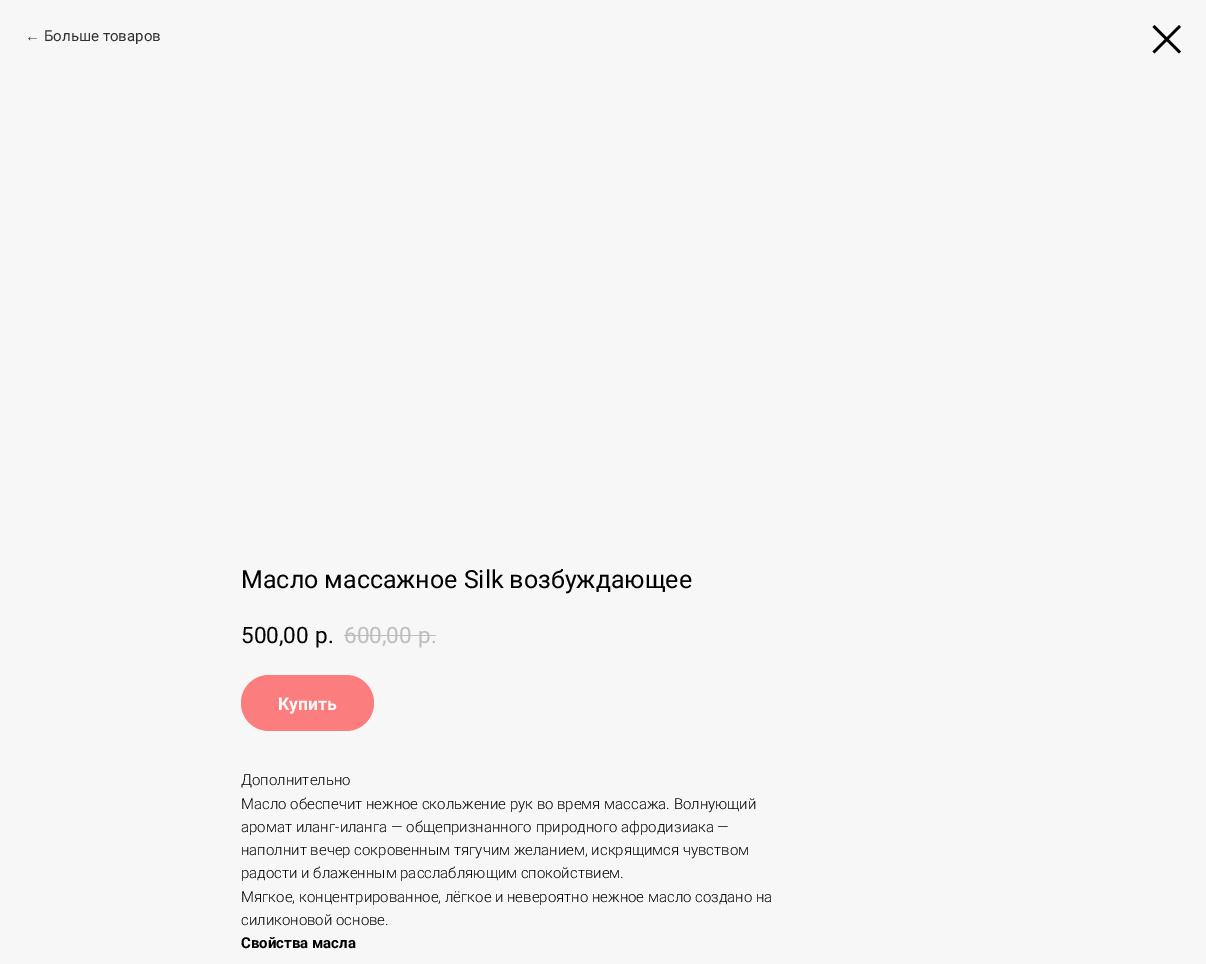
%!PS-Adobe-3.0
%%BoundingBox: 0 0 1206 964
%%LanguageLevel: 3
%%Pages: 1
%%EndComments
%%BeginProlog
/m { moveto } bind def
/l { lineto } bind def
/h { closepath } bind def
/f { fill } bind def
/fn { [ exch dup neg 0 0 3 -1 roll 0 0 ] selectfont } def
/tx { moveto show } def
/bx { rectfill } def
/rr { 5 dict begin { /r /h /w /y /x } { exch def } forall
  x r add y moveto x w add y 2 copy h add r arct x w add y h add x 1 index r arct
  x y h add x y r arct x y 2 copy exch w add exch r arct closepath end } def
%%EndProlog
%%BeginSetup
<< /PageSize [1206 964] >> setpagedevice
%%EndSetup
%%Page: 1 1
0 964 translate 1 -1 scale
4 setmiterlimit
0.969 setgray
0 0 1206 964 bx
/LiberationSans-Regular 15 fn
0.192 setgray
(←) 25 41 tx
/Roboto-Regular 15 fn
(Больше товаров) 44 41 tx
0 setgray
1152.5 27 m 1154.5 25 l 1181 51.5 l 1179 53.5 l h eofill
1179 25 m 1181 27 l 1154.5 53.5 l 1152.5 51.5 l h eofill
/Roboto-Regular 25 fn
(Масло массажное Silk возбуждающее) 241 588 tx
/Roboto-Regular 22.5 fn
(500,00) 241 643 tx
(р.) 315 643 tx
0.741 setgray
(600,00) 344 643 tx
(р.) 418 643 tx
344 635 92 1 bx
0.984 0.49 0.49 setrgbcolor
241 675 133 56 28 rr f
/Roboto-Bold 17.5 fn
0.98 setgray
(Купить) 278 710 tx
/Roboto-Light 15 fn
0 setgray
(Дополнительно) 241 785 tx
(Масло обеспечит нежное скольжение рук во время массажа. Волнующий) 241 809 tx
(аромат иланг-иланга — общепризнанного природного афродизиака —) 241 832 tx
(наполнит вечер сокровенным тягучим желанием, искрящимся чувством) 241 855 tx
(радости и блаженным расслабляющим спокойствием.) 241 878 tx
(Мягкое, концентрированное, лёгкое и невероятно нежное масло создано на) 241 902 tx
(силиконовой основе.) 241 925 tx
/Roboto-Bold 15 fn
(Свойства масла) 241 948 tx
showpage
%%EOF
